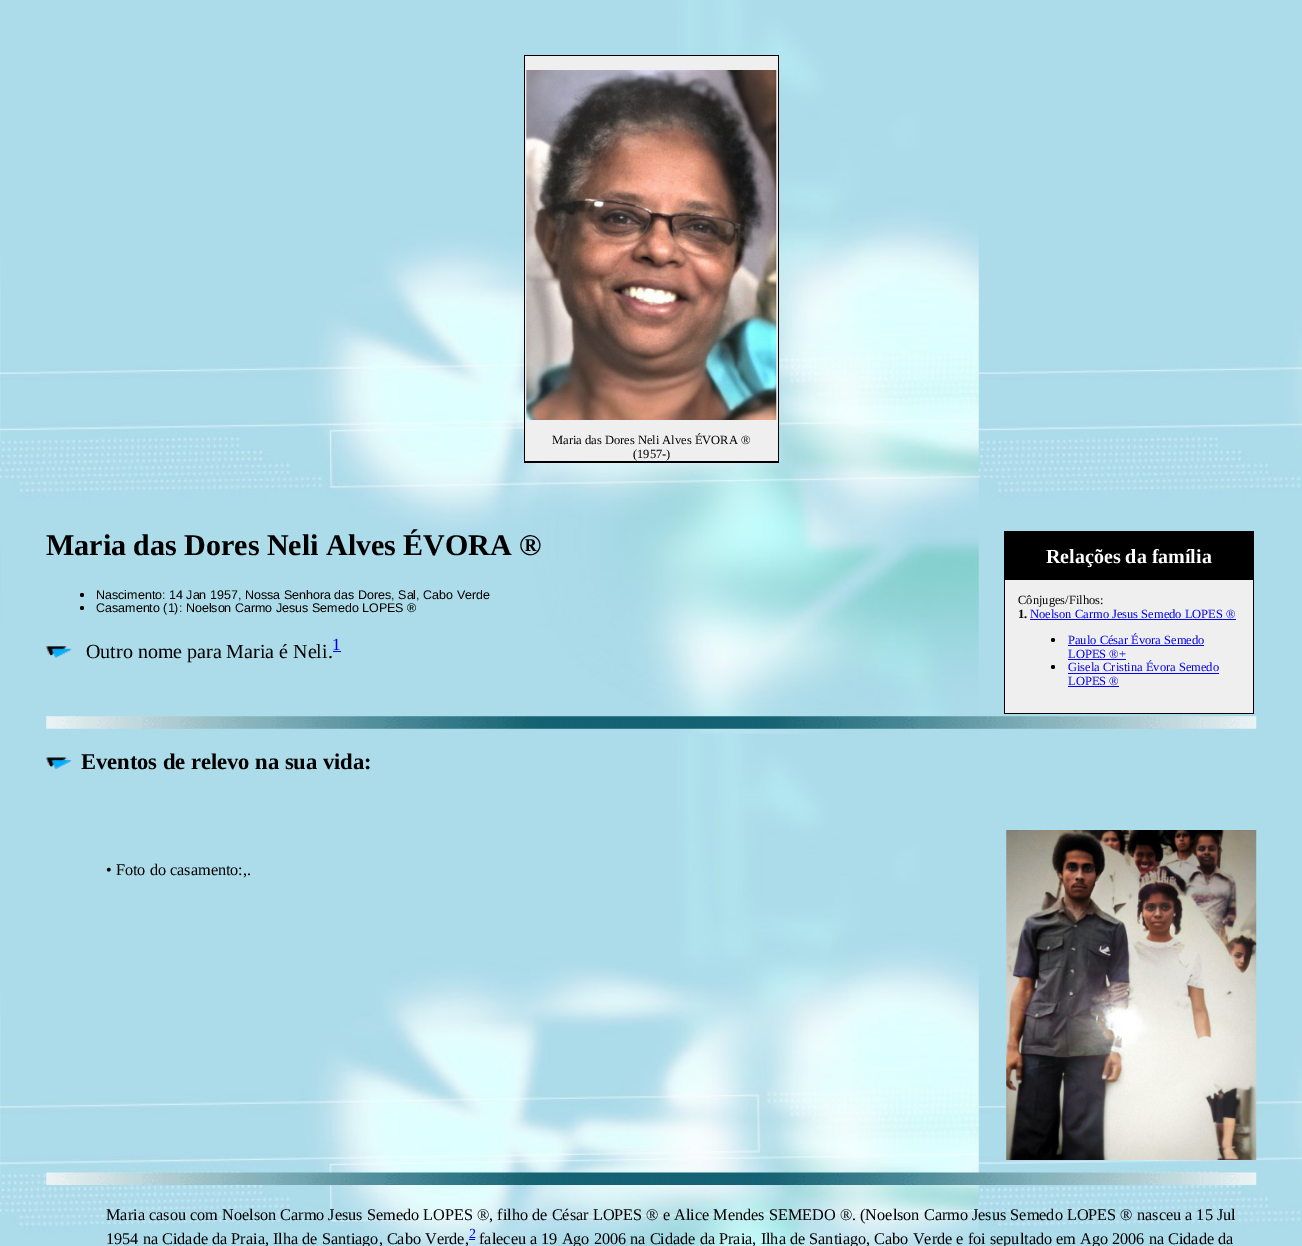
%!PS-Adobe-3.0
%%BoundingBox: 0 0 1302 1246
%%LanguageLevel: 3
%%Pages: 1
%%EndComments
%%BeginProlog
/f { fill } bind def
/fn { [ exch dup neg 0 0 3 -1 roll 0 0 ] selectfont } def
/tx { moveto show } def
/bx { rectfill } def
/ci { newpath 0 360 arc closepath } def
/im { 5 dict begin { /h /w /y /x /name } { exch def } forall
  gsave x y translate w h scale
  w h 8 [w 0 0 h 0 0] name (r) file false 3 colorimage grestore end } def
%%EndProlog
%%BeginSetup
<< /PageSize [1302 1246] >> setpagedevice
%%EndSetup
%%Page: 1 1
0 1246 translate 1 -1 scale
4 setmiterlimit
1 setgray
0 0 1302 1246 bx
(image0.raw) 0 0 1302 1246 im
0 setgray
524 55 255 408 bx
0.937 setgray
525 56 253 405 bx
(image1.raw) 526 70 251 350 im
/LiberationSerif-Regular 12.5 fn
0 setgray
(Maria das Dores Neli Alves ÉVORA ®) 552 444 tx
(\(1957-\)) 633 458 tx
/LiberationSerif-Bold 30 fn
(Maria das Dores Neli Alves ÉVORA ®) 46 555 tx
82 595 2 ci f
/LiberationSans-Regular 12.5 fn
(Nascimento: 14 Jan 1957, Nossa Senhora das Dores, Sal, Cabo Verde) 96 599 tx
82 608 2 ci f
(Casamento \(1\): Noelson Carmo Jesus Semedo LOPES ®) 96 612 tx
1004 531 250 183 bx
/LiberationSerif-Bold 20 fn
1 setgray
(Relações da família) 1046 563 tx
0.937 setgray
1005 580 248 133 bx
/LiberationSerif-Regular 12.5 fn
0 setgray
(Cônjuges/Filhos:) 1018 604 tx
/LiberationSerif-Bold 12.5 fn
(1.) 1018 618 tx
/LiberationSerif-Regular 12.5 fn
0 0 0.933 setrgbcolor
(Noelson Carmo Jesus Semedo LOPES ®) 1030 618 tx
1030 619 206 1 bx
0 setgray
1053 640 2 ci f
0 0 0.933 setrgbcolor
(Paulo César Évora Semedo) 1068 644 tx
1068 645 136 1 bx
(LOPES ®+) 1068 658 tx
1068 659 58 1 bx
0 setgray
1053 667 2 ci f
0 0 0.933 setrgbcolor
(Gisela Cristina Évora Semedo) 1068 671 tx
1068 673 151 1 bx
(LOPES ®) 1068 685 tx
1068 686 51 1 bx
(image2.raw) 46 646 26 12 im
/LiberationSerif-Regular 20 fn
0 setgray
(Outro nome para Maria é Neli.) 86 658 tx
/LiberationSerif-Regular 17 fn
0 0 0.933 setrgbcolor
(1) 332 650 tx
333 651 8 1 bx
(image3.raw) 46 716 1211 13 im
(image4.raw) 46 757 26 12 im
/LiberationSerif-Bold 22.5 fn
0 setgray
(Eventos de relevo na sua vida:) 81 769 tx
/LiberationSerif-Regular 16.25 fn
(• Foto do casamento:,.) 106 875 tx
(image5.raw) 1006 830 251 330 im
(image6.raw) 46 1172 1211 13 im
(Maria casou com Noelson Carmo Jesus Semedo LOPES ®, filho de César LOPES ® e Alice Mendes SEMEDO ®. \(Noelson Carmo Jesus Semedo LOPES ® nasceu a 15 Jul) 106 1220 tx
(1954 na Cidade da Praia, Ilha de Santiago, Cabo Verde,) 106 1244 tx
0 0 0.933 setrgbcolor
469 1239 6 1 bx
/LiberationSerif-Regular 14 fn
(2) 469 1238 tx
/LiberationSerif-Regular 16.25 fn
0 setgray
(faleceu a 19 Ago 2006 na Cidade da Praia, Ilha de Santiago, Cabo Verde e foi sepultado em Ago 2006 na Cidade da) 479 1244 tx
showpage
%%EOF
